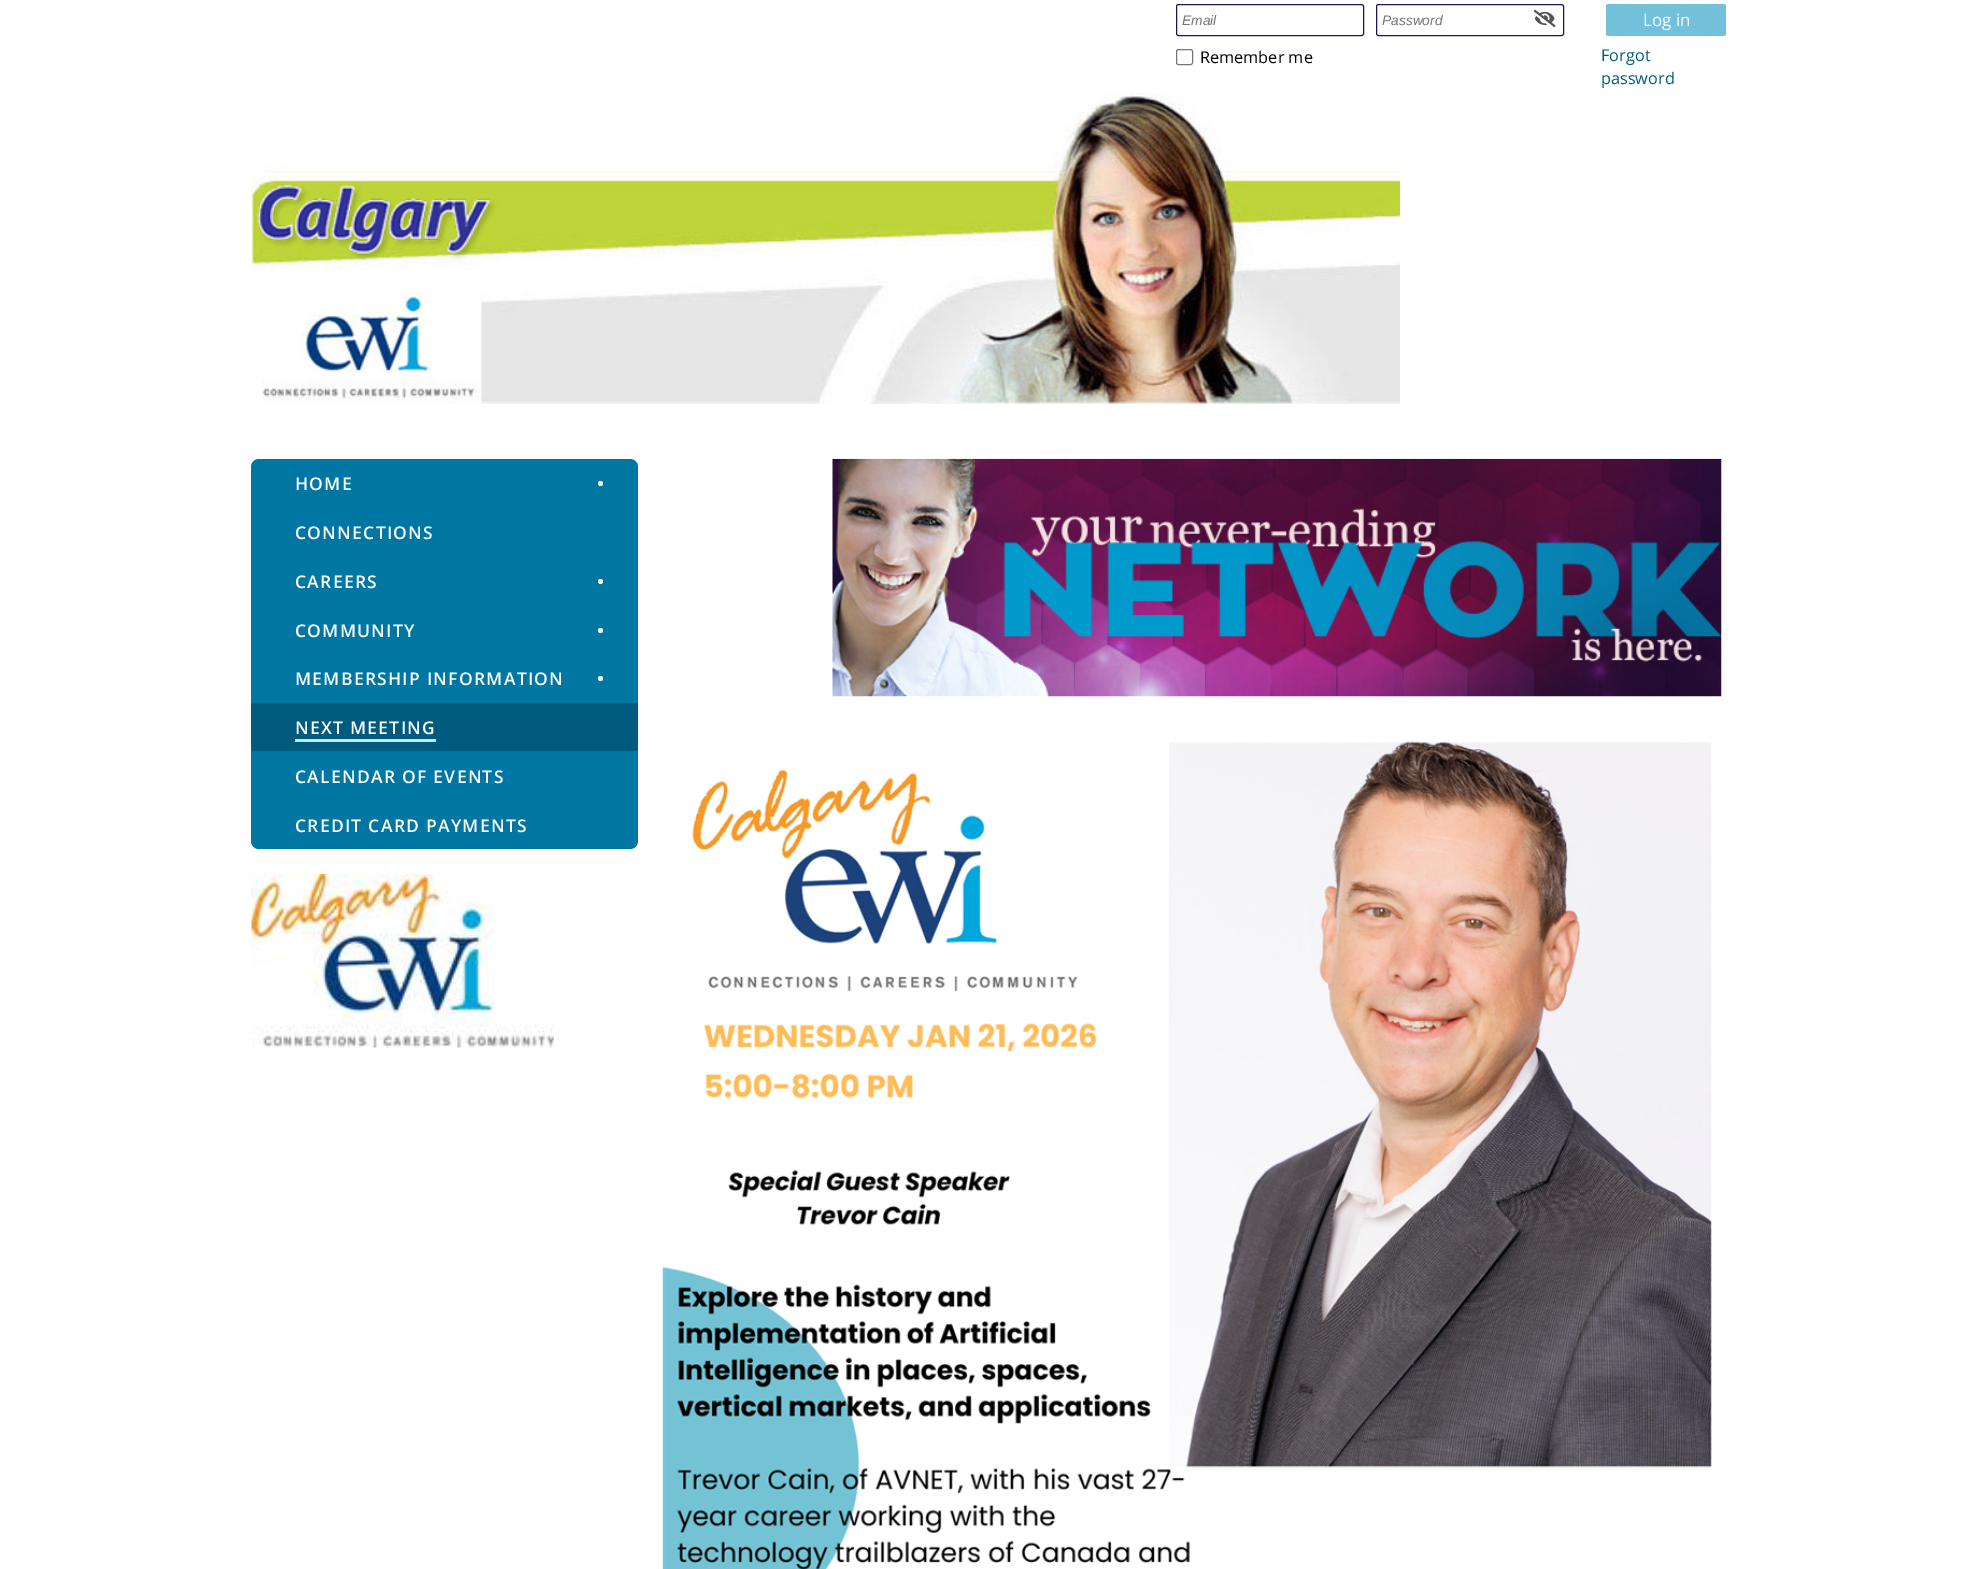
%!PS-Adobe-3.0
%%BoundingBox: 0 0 1977 1569
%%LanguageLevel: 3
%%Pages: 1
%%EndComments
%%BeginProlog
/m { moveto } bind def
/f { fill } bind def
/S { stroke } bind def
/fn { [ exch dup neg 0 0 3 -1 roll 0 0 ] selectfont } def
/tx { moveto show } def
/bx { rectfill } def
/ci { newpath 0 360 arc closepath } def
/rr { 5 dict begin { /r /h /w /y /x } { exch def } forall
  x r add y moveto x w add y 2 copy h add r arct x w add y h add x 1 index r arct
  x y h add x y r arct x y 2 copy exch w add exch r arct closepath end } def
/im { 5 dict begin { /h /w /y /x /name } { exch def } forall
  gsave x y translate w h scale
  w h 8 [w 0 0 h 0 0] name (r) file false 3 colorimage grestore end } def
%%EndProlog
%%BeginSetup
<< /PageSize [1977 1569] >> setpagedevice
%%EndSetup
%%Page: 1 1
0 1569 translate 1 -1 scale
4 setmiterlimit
1 setgray
0 0 1977 1569 bx
0.106 0.078 0.392 setrgbcolor
1176.5 4.5 187 31 2 rr S
/LiberationSans-Italic 13.75 fn
0.459 setgray
(Email) 1182 25 tx
0.106 0.078 0.392 setrgbcolor
1376.5 4.5 187 31 2 rr S
0.459 setgray
(Password) 1382 25 tx
(image0.raw) 1533 9 23 19 im
0.451 0.753 0.855 setrgbcolor
1606 4 120 32 2.5 rr f
/OpenSans-Regular 17 fn
1 setgray
(Log in) 1643 26 tx
0.463 setgray
1176.5 49.5 16 15 2 rr S
/OpenSans-Regular 16.25 fn
0 setgray
(Remember me) 1200 63 tx
0 0.357 0.498 setrgbcolor
(Forgot) 1601 61 tx
(password) 1601 84 tx
(image1.raw) 251 93 1149 311 im
0 0.463 0.639 setrgbcolor
251 459 387 390 8 rr f
/OpenSans-SemiBold 17.5 fn
1 setgray
295 490 m 1.25 0 (HOME) ashow
600.5 483.5 2.5 ci f
295 539 m 1.25 0 (CONNECTIONS) ashow
295 588 m 1.25 0 (CAREERS) ashow
600.5 581.5 2.5 ci f
295 637 m 1.25 0 (COMMUNITY) ashow
600.5 630.5 2.5 ci f
295 685 m 1.25 0 (MEMBERSHIP INFORMATION) ashow
600.5 678.5 2.5 ci f
0 0.357 0.498 setrgbcolor
251 703 387 48 bx
1 setgray
295 734 m 1.25 0 (NEXT MEETING) ashow
0.729 0.933 1 setrgbcolor
295 739 141 3 bx
1 setgray
295 783 m 1.25 0 (CALENDAR OF EVENTS) ashow
295 832 m 1.25 0 (CREDIT CARD PAYMENTS) ashow
(image2.raw) 251 873 303 175 im
(image3.raw) 832 458 890 239 im
(image4.raw) 662 741 1050 828 im
showpage
%%EOF
